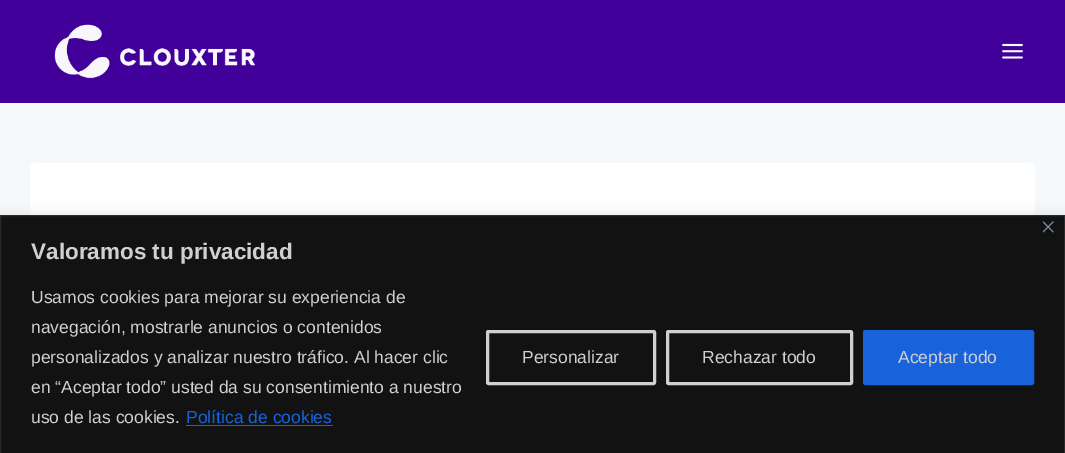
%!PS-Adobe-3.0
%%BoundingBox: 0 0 1065 453
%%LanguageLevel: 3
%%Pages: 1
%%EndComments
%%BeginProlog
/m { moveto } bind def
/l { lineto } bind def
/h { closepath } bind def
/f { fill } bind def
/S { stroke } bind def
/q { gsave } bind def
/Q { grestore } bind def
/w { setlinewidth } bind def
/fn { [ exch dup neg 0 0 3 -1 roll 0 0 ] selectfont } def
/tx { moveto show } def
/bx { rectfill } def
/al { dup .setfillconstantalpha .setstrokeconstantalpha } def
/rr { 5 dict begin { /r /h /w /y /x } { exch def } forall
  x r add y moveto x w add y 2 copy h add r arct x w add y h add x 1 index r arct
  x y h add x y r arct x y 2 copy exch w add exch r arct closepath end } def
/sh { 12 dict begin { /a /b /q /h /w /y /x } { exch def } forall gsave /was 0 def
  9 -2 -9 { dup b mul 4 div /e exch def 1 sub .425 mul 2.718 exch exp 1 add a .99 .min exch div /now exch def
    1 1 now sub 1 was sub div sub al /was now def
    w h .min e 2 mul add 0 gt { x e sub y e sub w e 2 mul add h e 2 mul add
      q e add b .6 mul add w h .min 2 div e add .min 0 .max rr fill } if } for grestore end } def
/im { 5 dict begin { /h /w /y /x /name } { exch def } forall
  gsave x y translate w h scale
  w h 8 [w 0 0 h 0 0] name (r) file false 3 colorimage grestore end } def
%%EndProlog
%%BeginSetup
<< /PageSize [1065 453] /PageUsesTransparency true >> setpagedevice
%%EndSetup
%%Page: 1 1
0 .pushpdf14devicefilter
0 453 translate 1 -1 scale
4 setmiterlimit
0.965 0.976 0.988 setrgbcolor
0 0 1065 453 bx
0.255 0 0.6 setrgbcolor
0 0 1065 103 bx
(image0.raw) 54 24 202 55 im
(image1.raw) 1002 43 21 16 im
1 setgray
30 163 1005 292 5 rr f
0.675 0.671 0.671 setrgbcolor
0 214 1065 239 0 6 0.3 sh
0.071 setgray
0.5 215.5 m 1064.5 215.5 l 1064.5 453.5 l 0.5 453.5 l h q f Q
0.165 setgray
S
(image2.raw) 1043 221 11 12 im
/LiberationSans-Bold 22.5 fn
0.816 setgray
(Valoramos tu privacidad) 31 259 tx
/LiberationSans-Regular 17.5 fn
(Usamos cookies para mejorar su experiencia de) 31 303 tx
(navegación, mostrarle anuncios o contenidos) 31 333 tx
(personalizados y analizar nuestro tráfico. Al hacer clic) 31 363 tx
(en “Aceptar todo” usted da su consentimiento a nuestro) 31 393 tx
(uso de las cookies.) 31 423 tx
0.094 0.388 0.863 setrgbcolor
(Política de cookies) 186 423 tx
186 425 147 1 bx
0.816 setgray
3 w
487.5 331.5 167 52 1 rr S
(Personalizar) 522 363 tx
667.5 331.5 184 52 1 rr S
(Rechazar todo) 702 363 tx
0.094 0.388 0.863 setrgbcolor
864.5 331.5 168 52 1 rr q f Q
S
0.816 setgray
(Aceptar todo) 898 363 tx
.poppdf14devicefilter showpage
%%EOF
